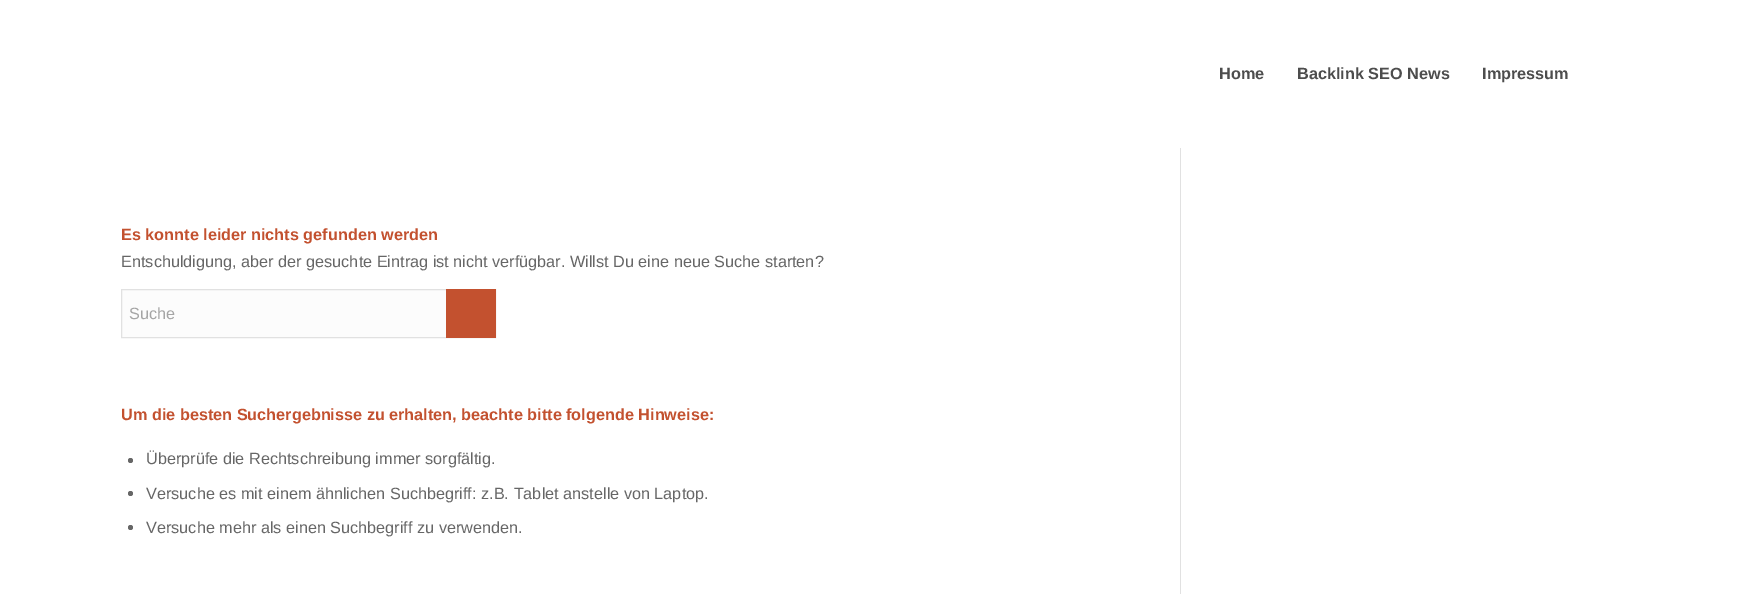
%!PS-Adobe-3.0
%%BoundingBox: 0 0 1755 594
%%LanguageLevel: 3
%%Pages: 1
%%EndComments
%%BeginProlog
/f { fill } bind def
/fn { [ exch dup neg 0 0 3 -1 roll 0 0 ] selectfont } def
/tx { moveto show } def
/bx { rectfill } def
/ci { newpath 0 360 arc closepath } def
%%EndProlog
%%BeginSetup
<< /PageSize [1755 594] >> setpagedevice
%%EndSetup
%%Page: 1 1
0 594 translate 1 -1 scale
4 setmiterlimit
1 setgray
0 0 1755 594 bx
/LiberationSans-Bold 16.25 fn
0.302 setgray
(Home) 1219 79 tx
(Backlink SEO News) 1297 79 tx
(Impressum) 1482 79 tx
0.882 setgray
1180 145 1 449 bx
1 setgray
1180 145 1 3 bx
0.765 0.318 0.184 setrgbcolor
(Es konnte leider nichts gefunden werden) 121 240 tx
/LiberationSans-Regular 16.25 fn
0.4 setgray
(Entschuldigung, aber der gesuchte Eintrag ist nicht verfügbar. Willst Du eine neue Suche starten?) 121 267 tx
0.988 setgray
122 290 324 47 bx
0.882 setgray
121.5 289.5 374 48 rectstroke
0.647 setgray
(Suche) 129 319 tx
0.765 0.318 0.184 setrgbcolor
446 289 50 49 bx
/LiberationSans-Bold 16.25 fn
(Um die besten Suchergebnisse zu erhalten, beachte bitte folgende Hinweise:) 121 420 tx
0.4 setgray
130.5 460.5 2.5 ci f
/LiberationSans-Regular 16.25 fn
(Überprüfe die Rechtschreibung immer sorgfältig.) 146 464 tx
130.5 493.5 2.5 ci f
(Versuche es mit einem ähnlichen Suchbegriff: z.B. Tablet anstelle von Laptop.) 146 499 tx
130.5 527.5 2.5 ci f
(Versuche mehr als einen Suchbegriff zu verwenden.) 146 533 tx
showpage
%%EOF
